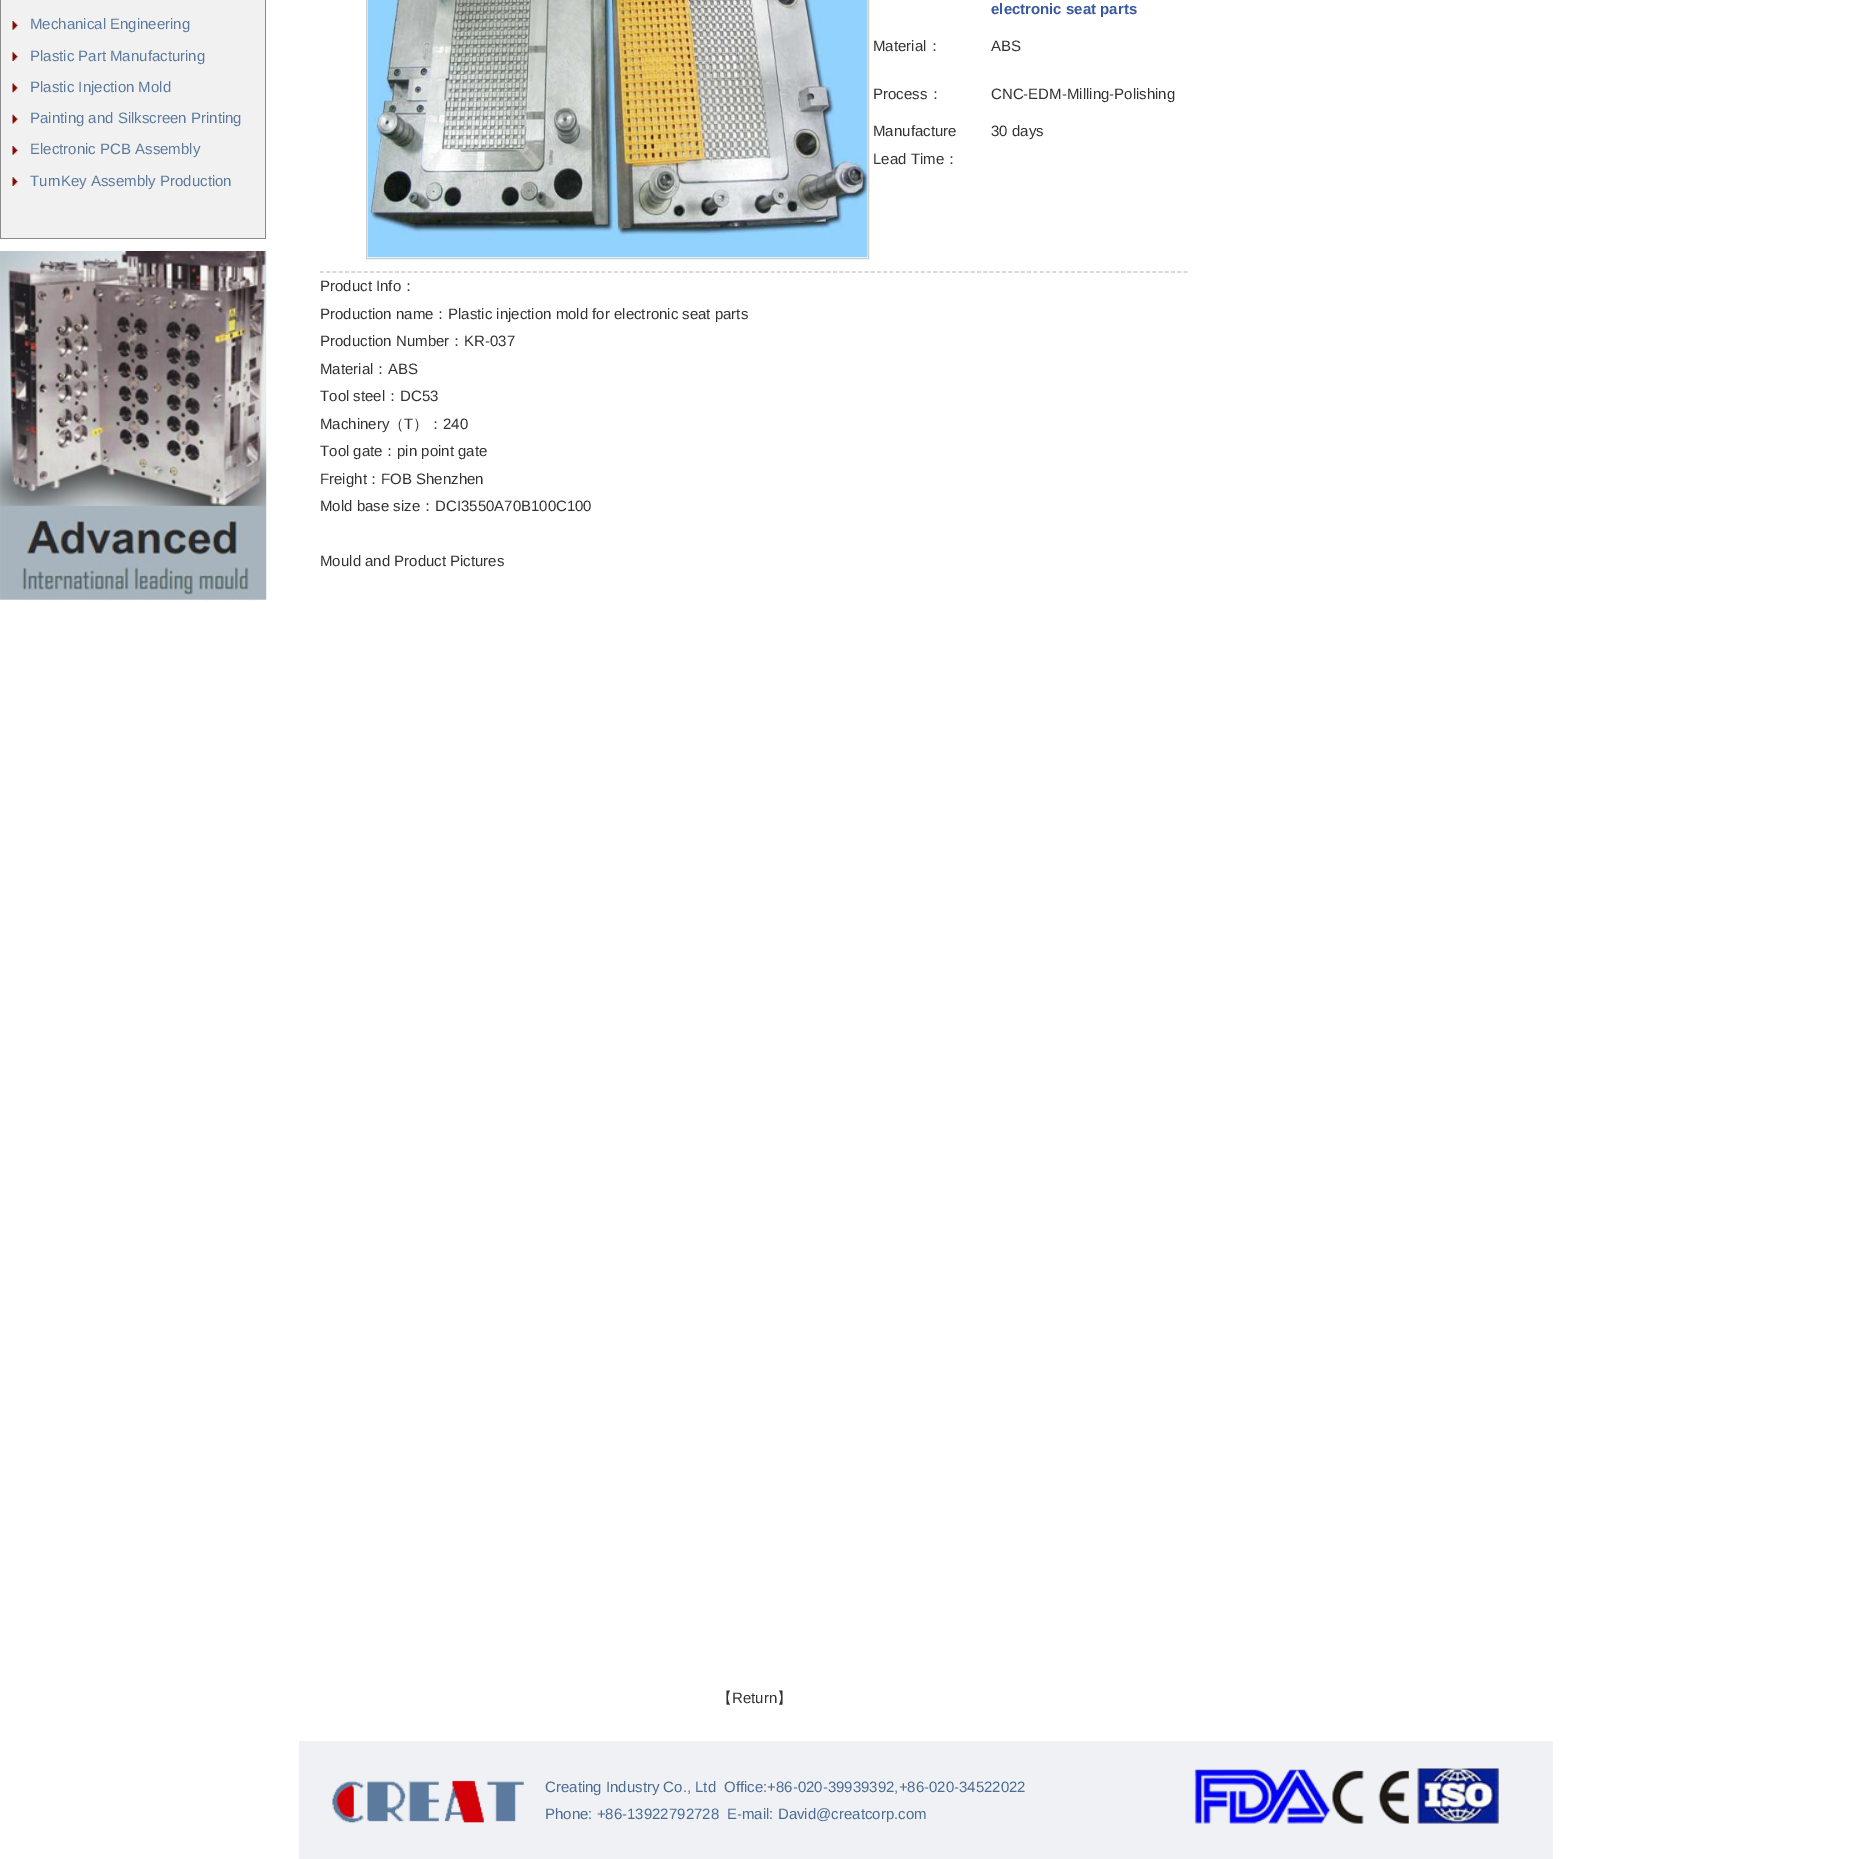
%!PS-Adobe-3.0
%%BoundingBox: 0 0 1849 1859
%%LanguageLevel: 3
%%Pages: 1
%%EndComments
%%BeginProlog
/m { moveto } bind def
/l { lineto } bind def
/S { stroke } bind def
/w { setlinewidth } bind def
/fn { [ exch dup neg 0 0 3 -1 roll 0 0 ] selectfont } def
/tx { moveto show } def
/bx { rectfill } def
/im { 5 dict begin { /h /w /y /x /name } { exch def } forall
  gsave x y translate w h scale
  w h 8 [w 0 0 h 0 0] name (r) file false 3 colorimage grestore end } def
%%EndProlog
%%BeginSetup
<< /PageSize [1849 1859] >> setpagedevice
%%EndSetup
%%Page: 1 1
0 1859 translate 1 -1 scale
4 setmiterlimit
1 setgray
0 0 1849 1859 bx
0.945 setgray
1 0 264 238 bx
0.545 setgray
265 0 1 239 bx
0 238 266 1 bx
0 0 1 239 bx
(image0.raw) 12 21 6 9 im
/LiberationSans-Regular 15 fn
0.361 0.478 0.62 setrgbcolor
(Mechanical Engineering) 30 29 tx
(image1.raw) 12 52 6 9 im
(Plastic Part Manufacturing) 30 61 tx
(image2.raw) 12 83 6 10 im
(Plastic Injection Mold) 30 92 tx
(image3.raw) 12 114 6 10 im
(Painting and Silkscreen Printing) 30 123 tx
(image0.raw) 12 146 6 9 im
(Electronic PCB Assembly) 30 154 tx
(image1.raw) 12 177 6 9 im
(TurnKey Assembly Production) 30 186 tx
(image4.raw) 0 251 267 350 im
0.8 setgray
366.5 -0.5 502 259 rectstroke
(image5.raw) 367 0 501 258 im
/LiberationSans-Bold 15 fn
0.22 0.345 0.631 setrgbcolor
(electronic seat parts) 991 14 tx
/LiberationSans-Regular 15 fn
0.2 setgray
(Material) 873 51 tx
/WenQuanYiZenHei-Medium 15 fn
(：) 927 51 tx
/LiberationSans-Regular 15 fn
(ABS) 991 51 tx
(Process) 873 99 tx
/WenQuanYiZenHei-Medium 15 fn
(：) 928 99 tx
/LiberationSans-Regular 15 fn
(CNC-EDM-Milling-Polishing) 991 99 tx
(Manufacture) 873 136 tx
(Lead Time) 873 164 tx
/WenQuanYiZenHei-Medium 15 fn
(：) 944 164 tx
/LiberationSans-Regular 15 fn
(30 days) 991 136 tx
0.8 setgray
1.2 w
[3.75 2.51] 0 setdash
320 272 m 1189 272 l S
0.2 setgray
(Product Info) 320 291 tx
/WenQuanYiZenHei-Medium 15 fn
(：) 401 291 tx
/LiberationSans-Regular 15 fn
(Production name) 320 319 tx
/WenQuanYiZenHei-Medium 15 fn
(：) 433 319 tx
/LiberationSans-Regular 15 fn
(Plastic injection mold for electronic seat parts) 448 319 tx
(Production Number) 320 346 tx
/WenQuanYiZenHei-Medium 15 fn
(：) 449 346 tx
/LiberationSans-Regular 15 fn
(KR-037) 464 346 tx
(Material) 320 374 tx
/WenQuanYiZenHei-Medium 15 fn
(：) 373 374 tx
/LiberationSans-Regular 15 fn
(ABS) 388 374 tx
(Tool steel) 320 401 tx
/WenQuanYiZenHei-Medium 15 fn
(：) 385 401 tx
/LiberationSans-Regular 15 fn
(DC53) 400 401 tx
(Machinery) 320 429 tx
/WenQuanYiZenHei-Medium 15 fn
(（) 389 429 tx
/LiberationSans-Regular 15 fn
(T) 404 429 tx
/WenQuanYiZenHei-Medium 15 fn
(）：) 413 429 tx
/LiberationSans-Regular 15 fn
(240) 443 429 tx
(Tool gate) 320 456 tx
/WenQuanYiZenHei-Medium 15 fn
(：) 382 456 tx
/LiberationSans-Regular 15 fn
(pin point gate) 397 456 tx
(Freight) 320 484 tx
/WenQuanYiZenHei-Medium 15 fn
(：) 366 484 tx
/LiberationSans-Regular 15 fn
(FOB Shenzhen) 381 484 tx
(Mold base size) 320 511 tx
/WenQuanYiZenHei-Medium 15 fn
(：) 420 511 tx
/LiberationSans-Regular 15 fn
(DCI3550A70B100C100) 435 511 tx
(Mould and Product Pictures) 320 566 tx
/WenQuanYiZenHei-Medium 15 fn
(【) 717 1703 tx
/LiberationSans-Regular 15 fn
(Return) 732 1703 tx
/WenQuanYiZenHei-Medium 15 fn
(】) 777 1703 tx
0.937 0.945 0.957 setrgbcolor
299 1741 1254 118 bx
(image6.raw) 332 1780 192 43 im
/LiberationSans-Regular 15 fn
0.294 0.424 0.576 setrgbcolor
(Creating Industry Co., Ltd) 545 1792 tx
(Office:+86-020-39939392,+86-020-34522022) 724 1792 tx
(Phone: +86-13922792728) 545 1819 tx
(E-mail: David@creatcorp.com) 727 1819 tx
(image7.raw) 1194 1768 305 56 im
showpage
%%EOF
